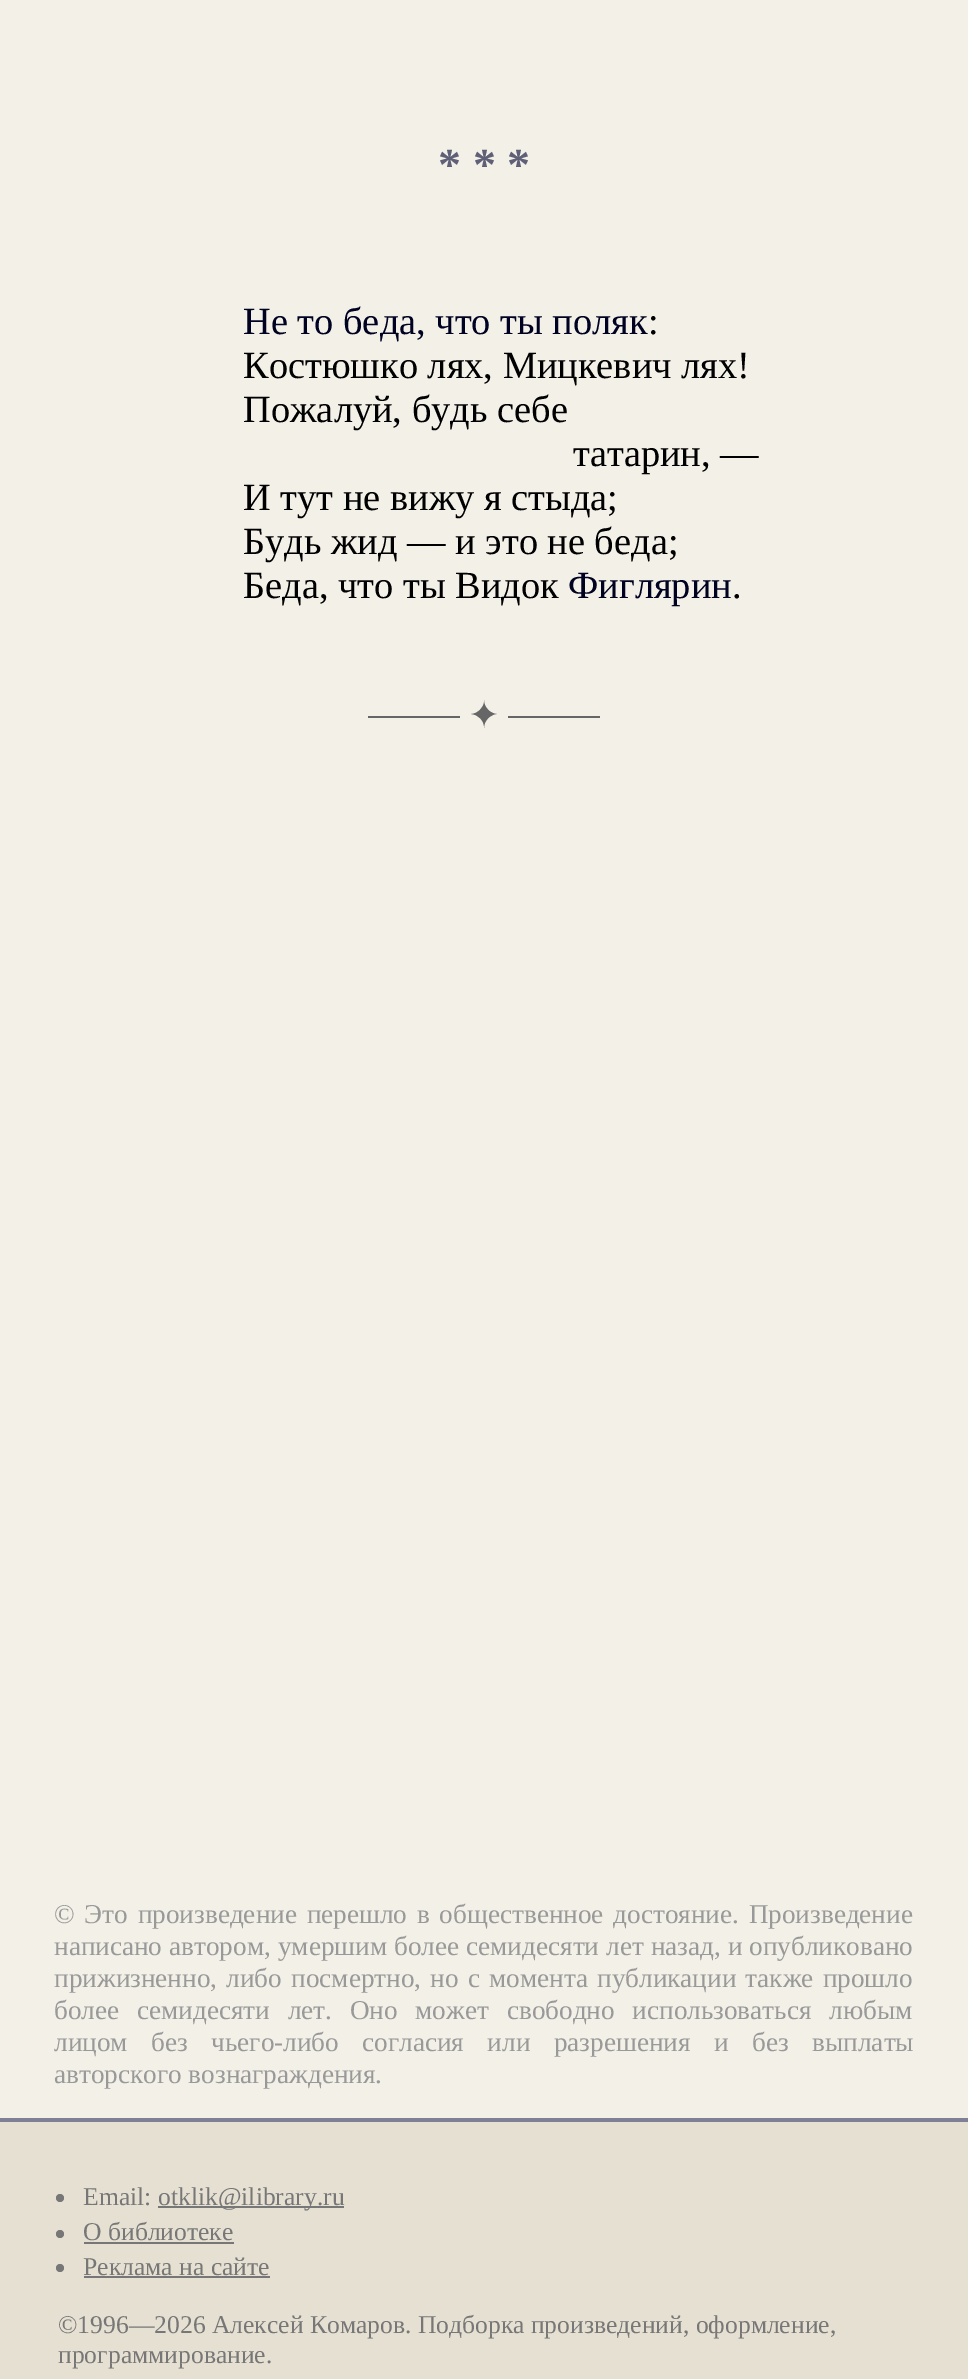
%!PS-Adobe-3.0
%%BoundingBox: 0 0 968 2379
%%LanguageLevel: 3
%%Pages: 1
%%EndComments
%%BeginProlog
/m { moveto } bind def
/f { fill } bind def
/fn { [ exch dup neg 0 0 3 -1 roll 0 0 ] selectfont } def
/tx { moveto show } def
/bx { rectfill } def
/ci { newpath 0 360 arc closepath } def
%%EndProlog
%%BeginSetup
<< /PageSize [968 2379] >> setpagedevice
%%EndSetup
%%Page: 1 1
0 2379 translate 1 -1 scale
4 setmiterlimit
0.953 0.941 0.906 setrgbcolor
0 0 968 2379 bx
/LiberationSerif-Bold 46 fn
0.373 0.373 0.467 setrgbcolor
(* * *) 438 180 tx
/LiberationSerif-Regular 38.4 fn
0 0.008 0.133 setrgbcolor
(Не то беда, что ты поляк) 243 334 tx
0 setgray
(:) 648 334 tx
(Костюшко лях, Мицкевич лях!) 243 378 tx
(Пожалуй, будь себе) 243 422 tx
(татарин, —) 573 466 tx
(И тут не вижу я стыда;) 243 510 tx
(Будь жид — и это не беда;) 243 554 tx
(Беда, что ты Видок) 243 598 tx
0 0.008 0.133 setrgbcolor
(Фиглярин) 568 598 tx
0 setgray
(.) 732 598 tx
0.4 setgray
368 716 232 2 bx
0.953 0.941 0.906 setrgbcolor
460 716 48 2 bx
/DejaVuSans-Regular 38.4 fn
0.4 setgray
(✦) 468 728 tx
/LiberationSerif-Regular 27.2 fn
0.6 setgray
54 1923 m 3 0 32 (© Это произведение перешло в общественное достояние. Произведение) widthshow
54 1955 m 0.25 0 32 (написано автором, умершим более семидесяти лет назад, и опубликовано) widthshow
54 1987 m 2.5 0 32 (прижизненно, либо посмертно, но с момента публикации также прошло) widthshow
54 2019 m 11 0 32 (более семидесяти лет. Оно может свободно использоваться любым) widthshow
54 2051 m 16.75 0 32 (лицом без чьего-либо согласия или разрешения и без выплаты) widthshow
(авторского вознаграждения.) 54 2083 tx
0.902 0.878 0.827 setrgbcolor
0 2122 968 257 bx
0.498 0.498 0.588 setrgbcolor
0 2118 968 4 bx
0.467 setgray
60 2198 4 ci f
/LiberationSerif-Regular 25.6 fn
(Email:) 83 2205 tx
158 2206 186 2 bx
(otklik@ilibrary.ru) 158 2205 tx
60 2234 4 ci f
(О библиотеке) 83 2240 tx
84 2242 150 2 bx
60 2268 4 ci f
(Реклама на сайте) 83 2275 tx
84 2276 186 2 bx
(©1996—2026 Алексей Комаров. Подборка произведений, оформление,) 58 2333 tx
(программирование.) 58 2363 tx
showpage
%%EOF
